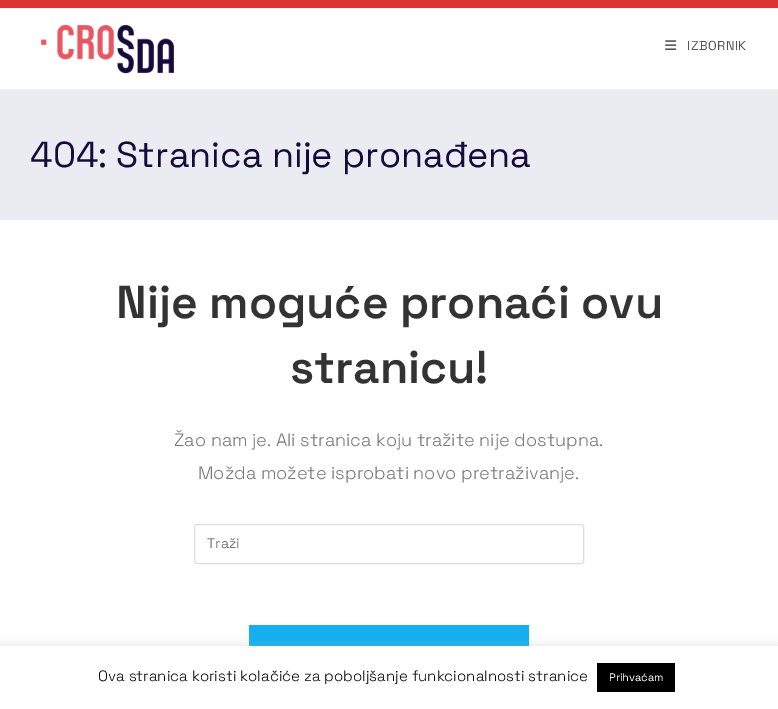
%!PS-Adobe-3.0
%%BoundingBox: 0 0 778 709
%%LanguageLevel: 3
%%Pages: 1
%%EndComments
%%BeginProlog
/m { moveto } bind def
/S { stroke } bind def
/fn { [ exch dup neg 0 0 3 -1 roll 0 0 ] selectfont } def
/tx { moveto show } def
/bx { rectfill } def
/al { dup .setfillconstantalpha .setstrokeconstantalpha } def
/rr { 5 dict begin { /r /h /w /y /x } { exch def } forall
  x r add y moveto x w add y 2 copy h add r arct x w add y h add x 1 index r arct
  x y h add x y r arct x y 2 copy exch w add exch r arct closepath end } def
/sh { 12 dict begin { /a /b /q /h /w /y /x } { exch def } forall gsave /was 0 def
  9 -2 -9 { dup b mul 4 div /e exch def 1 sub .425 mul 2.718 exch exp 1 add a .99 .min exch div /now exch def
    1 1 now sub 1 was sub div sub al /was now def
    w h .min e 2 mul add 0 gt { x e sub y e sub w e 2 mul add h e 2 mul add
      q e add b .6 mul add w h .min 2 div e add .min 0 .max rr fill } if } for grestore end } def
/im { 5 dict begin { /h /w /y /x /name } { exch def } forall
  gsave x y translate w h scale
  w h 8 [w 0 0 h 0 0] name (r) file false 3 colorimage grestore end } def
%%EndProlog
%%BeginSetup
<< /PageSize [778 709] /PageUsesTransparency true >> setpagedevice
%%EndSetup
%%Page: 1 1
0 .pushpdf14devicefilter
0 709 translate 1 -1 scale
4 setmiterlimit
1 setgray
0 0 778 709 bx
0.867 0.2 0.2 setrgbcolor
0 0 778 8 bx
0.945 setgray
0 8 778 1 bx
0 89 778 1 bx
(image0.raw) 41 24 134 50 im
(image1.raw) 665 40 12 10 im
/SpaceGrotesk-Regular 13 fn
0.333 setgray
687 50 m 0.5 0 (IZBORNIK) ashow
0.922 0.922 0.949 setrgbcolor
0 90 778 130 bx
/SpaceGrotesk-Regular 36 fn
0.086 0.039 0.227 setrgbcolor
(404: Stranica nije pronađena) 30 167 tx
/SpaceGrotesk-SemiBold 46 fn
0.2 setgray
(Nije moguće pronaći ovu) 116 318 tx
(stranicu!) 290 383 tx
/SpaceGrotesk-Light 18 fn
0.467 setgray
(Žao nam je. Ali stranica koju tražite nije dostupna.) 174 446 tx
(Možda možete isprobati novo pretraživanje.) 198 479 tx
0.867 setgray
194.5 524.5 389 39 2.5 rr S
/SpaceGrotesk-Regular 14 fn
0.467 setgray
(Traži) 207 548 tx
0.075 0.686 0.941 setrgbcolor
249 625 280 21 bx
0.675 0.671 0.671 setrgbcolor
0 645 778 63 0 5 0.3 sh
1 setgray
0 646 778 63 bx
/SpaceGrotesk-Light 15 fn
0 setgray
(Ova stranica koristi kolačiće za poboljšanje funkcionalnosti stranice) 98 681 tx
597 663 78 29 bx
/SpaceGrotesk-Regular 11 fn
1 setgray
(Prihvaćam) 609 681 tx
.poppdf14devicefilter showpage
%%EOF
